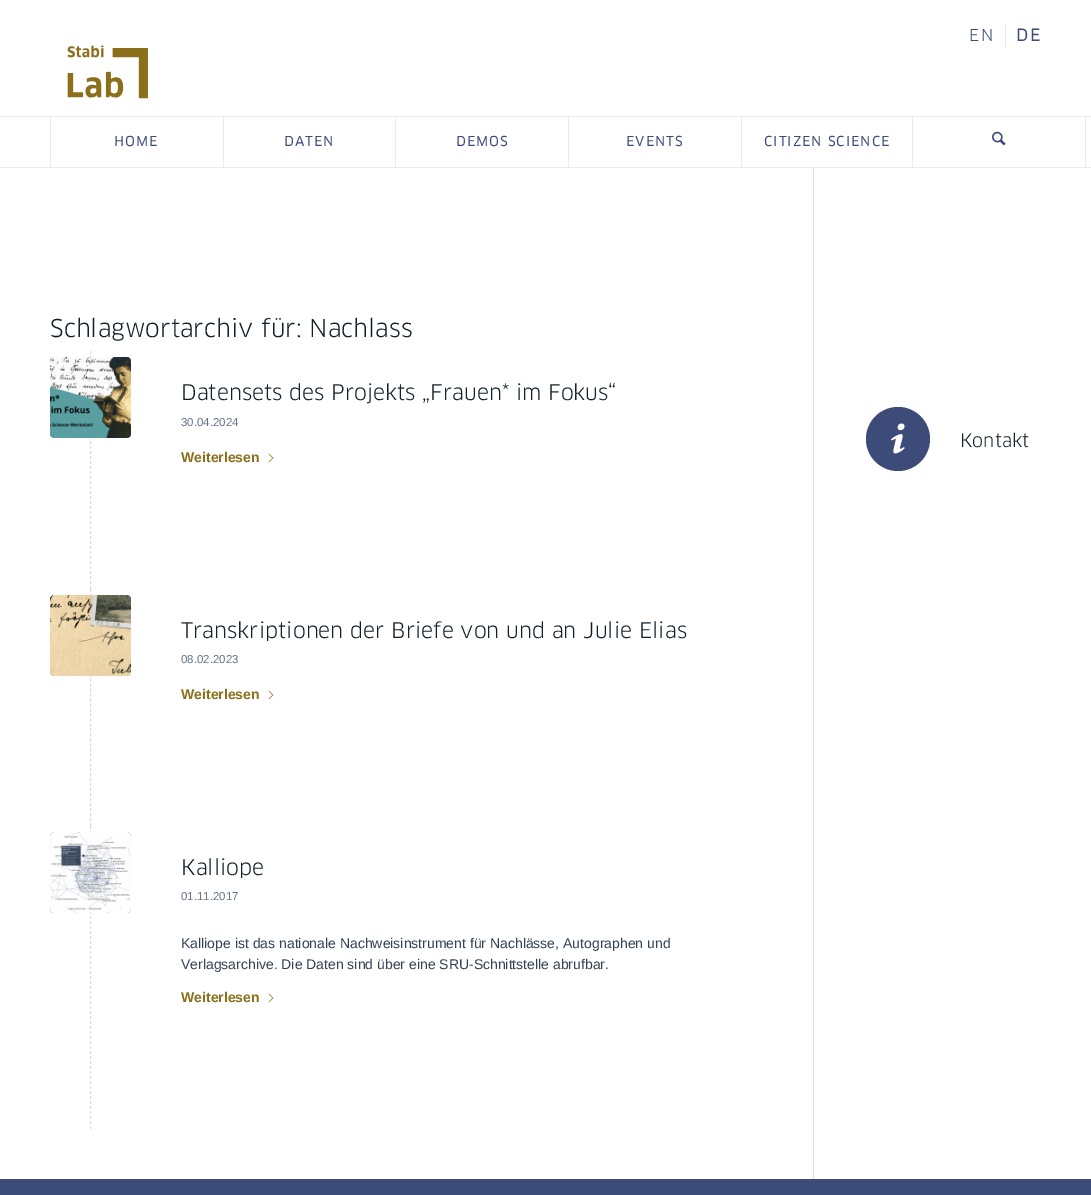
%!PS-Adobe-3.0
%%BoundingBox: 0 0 1091 1195
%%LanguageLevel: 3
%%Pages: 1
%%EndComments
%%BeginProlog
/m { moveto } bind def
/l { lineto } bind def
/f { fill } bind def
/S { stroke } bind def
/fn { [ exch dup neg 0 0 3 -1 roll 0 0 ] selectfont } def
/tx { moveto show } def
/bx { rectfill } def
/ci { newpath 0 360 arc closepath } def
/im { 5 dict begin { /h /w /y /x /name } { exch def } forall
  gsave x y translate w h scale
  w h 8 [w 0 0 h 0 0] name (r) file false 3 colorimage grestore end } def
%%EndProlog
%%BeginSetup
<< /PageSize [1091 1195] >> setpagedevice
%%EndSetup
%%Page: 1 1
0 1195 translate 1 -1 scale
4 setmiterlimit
1 setgray
0 0 1091 1195 bx
0.922 setgray
1005 24 1 24 bx
/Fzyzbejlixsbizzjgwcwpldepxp-Regular 16 fn
0.235 0.294 0.471 setrgbcolor
969 41 m 2 0 (EN) ashow
/Fzyzbejlixsbizzjgwcwpldepxp-Bold 16 fn
1016 41 m 2 0 (DE) ashow
0.867 setgray
813 167 1 1012 bx
0.922 setgray
0 167 1091 1 bx
(image0.raw) 67 45 81 54 im
0 116 1091 1 bx
50 117 1 50 bx
/Fzyzbejlixsbizzjgwcwpldepxp-Bold 13 fn
0.235 0.294 0.471 setrgbcolor
114 146 m 1.25 0 (HOME) ashow
0.922 setgray
223 117 1 50 bx
0.235 0.294 0.471 setrgbcolor
284 146 m 1.25 0 (DATEN) ashow
0.922 setgray
395 117 1 50 bx
0.235 0.294 0.471 setrgbcolor
456 146 m 1.25 0 (DEMOS) ashow
0.922 setgray
568 117 1 50 bx
0.235 0.294 0.471 setrgbcolor
626 146 m 1.25 0 (EVENTS) ashow
0.922 setgray
741 117 1 50 bx
0.235 0.294 0.471 setrgbcolor
764 146 m 1.25 0 (CITIZEN SCIENCE) ashow
0.922 setgray
1085 117 1 50 bx
912 117 1 50 bx
(image1.raw) 992 131 14 15 im
/Fzyzbejlixsbizzjgwcwpldepxp-Regular 24 fn
0.067 0.125 0.165 setrgbcolor
(Schlagwortarchiv für: Nachlass) 50 337 tx
0.867 setgray
[3 2] 0 setdash
90.5 351 m 90.5 589 l S
(image2.raw) 50 357 81 81 im
/Fzyzbejlixsbizzjgwcwpldepxp-Regular 21 fn
0.067 0.125 0.165 setrgbcolor
(Datensets des Projekts „Frauen* im Fokus“) 181 400 tx
/LiberationSans-Regular 11.5 fn
0.392 0.455 0.545 setrgbcolor
(30.04.2024) 181 426 tx
/LiberationSans-Bold 14 fn
0.545 0.435 0.102 setrgbcolor
(Weiterlesen) 181 462 tx
(image3.raw) 268 453 6 10 im
0.867 setgray
[3 1.98] 0 setdash
90.5 589 m 90.5 826 l S
(image4.raw) 50 595 81 81 im
/Fzyzbejlixsbizzjgwcwpldepxp-Regular 21 fn
0.067 0.125 0.165 setrgbcolor
(Transkriptionen der Briefe von und an Julie Elias) 181 638 tx
/LiberationSans-Regular 11.5 fn
0.392 0.455 0.545 setrgbcolor
(08.02.2023) 181 663 tx
/LiberationSans-Bold 14 fn
0.545 0.435 0.102 setrgbcolor
(Weiterlesen) 181 699 tx
(image3.raw) 268 690 6 10 im
0.867 setgray
[3 2] 0 setdash
90.5 826 m 90.5 1129 l S
(image5.raw) 50 832 81 81 im
/Fzyzbejlixsbizzjgwcwpldepxp-Regular 21 fn
0.067 0.125 0.165 setrgbcolor
(Kalliope) 181 875 tx
/LiberationSans-Regular 11.5 fn
0.392 0.455 0.545 setrgbcolor
(01.11.2017) 181 900 tx
/LiberationSans-Regular 14 fn
0.2 0.255 0.333 setrgbcolor
(Kalliope ist das nationale Nachweisinstrument für Nachlässe, Autographen und) 181 948 tx
(Verlagsarchive. Die Daten sind über eine SRU-Schnittstelle abrufbar.) 181 969 tx
/LiberationSans-Bold 14 fn
0.545 0.435 0.102 setrgbcolor
(Weiterlesen) 181 1002 tx
(image3.raw) 268 993 6 10 im
0.235 0.294 0.471 setrgbcolor
898 439 32 ci f
(image6.raw) 891 423 14 31 im
/Fzyzbejlixsbizzjgwcwpldepxp-Regular 18 fn
0.067 0.125 0.165 setrgbcolor
(Kontakt) 960 447 tx
0.235 0.294 0.471 setrgbcolor
0 1179 1091 16 bx
showpage
%%EOF
